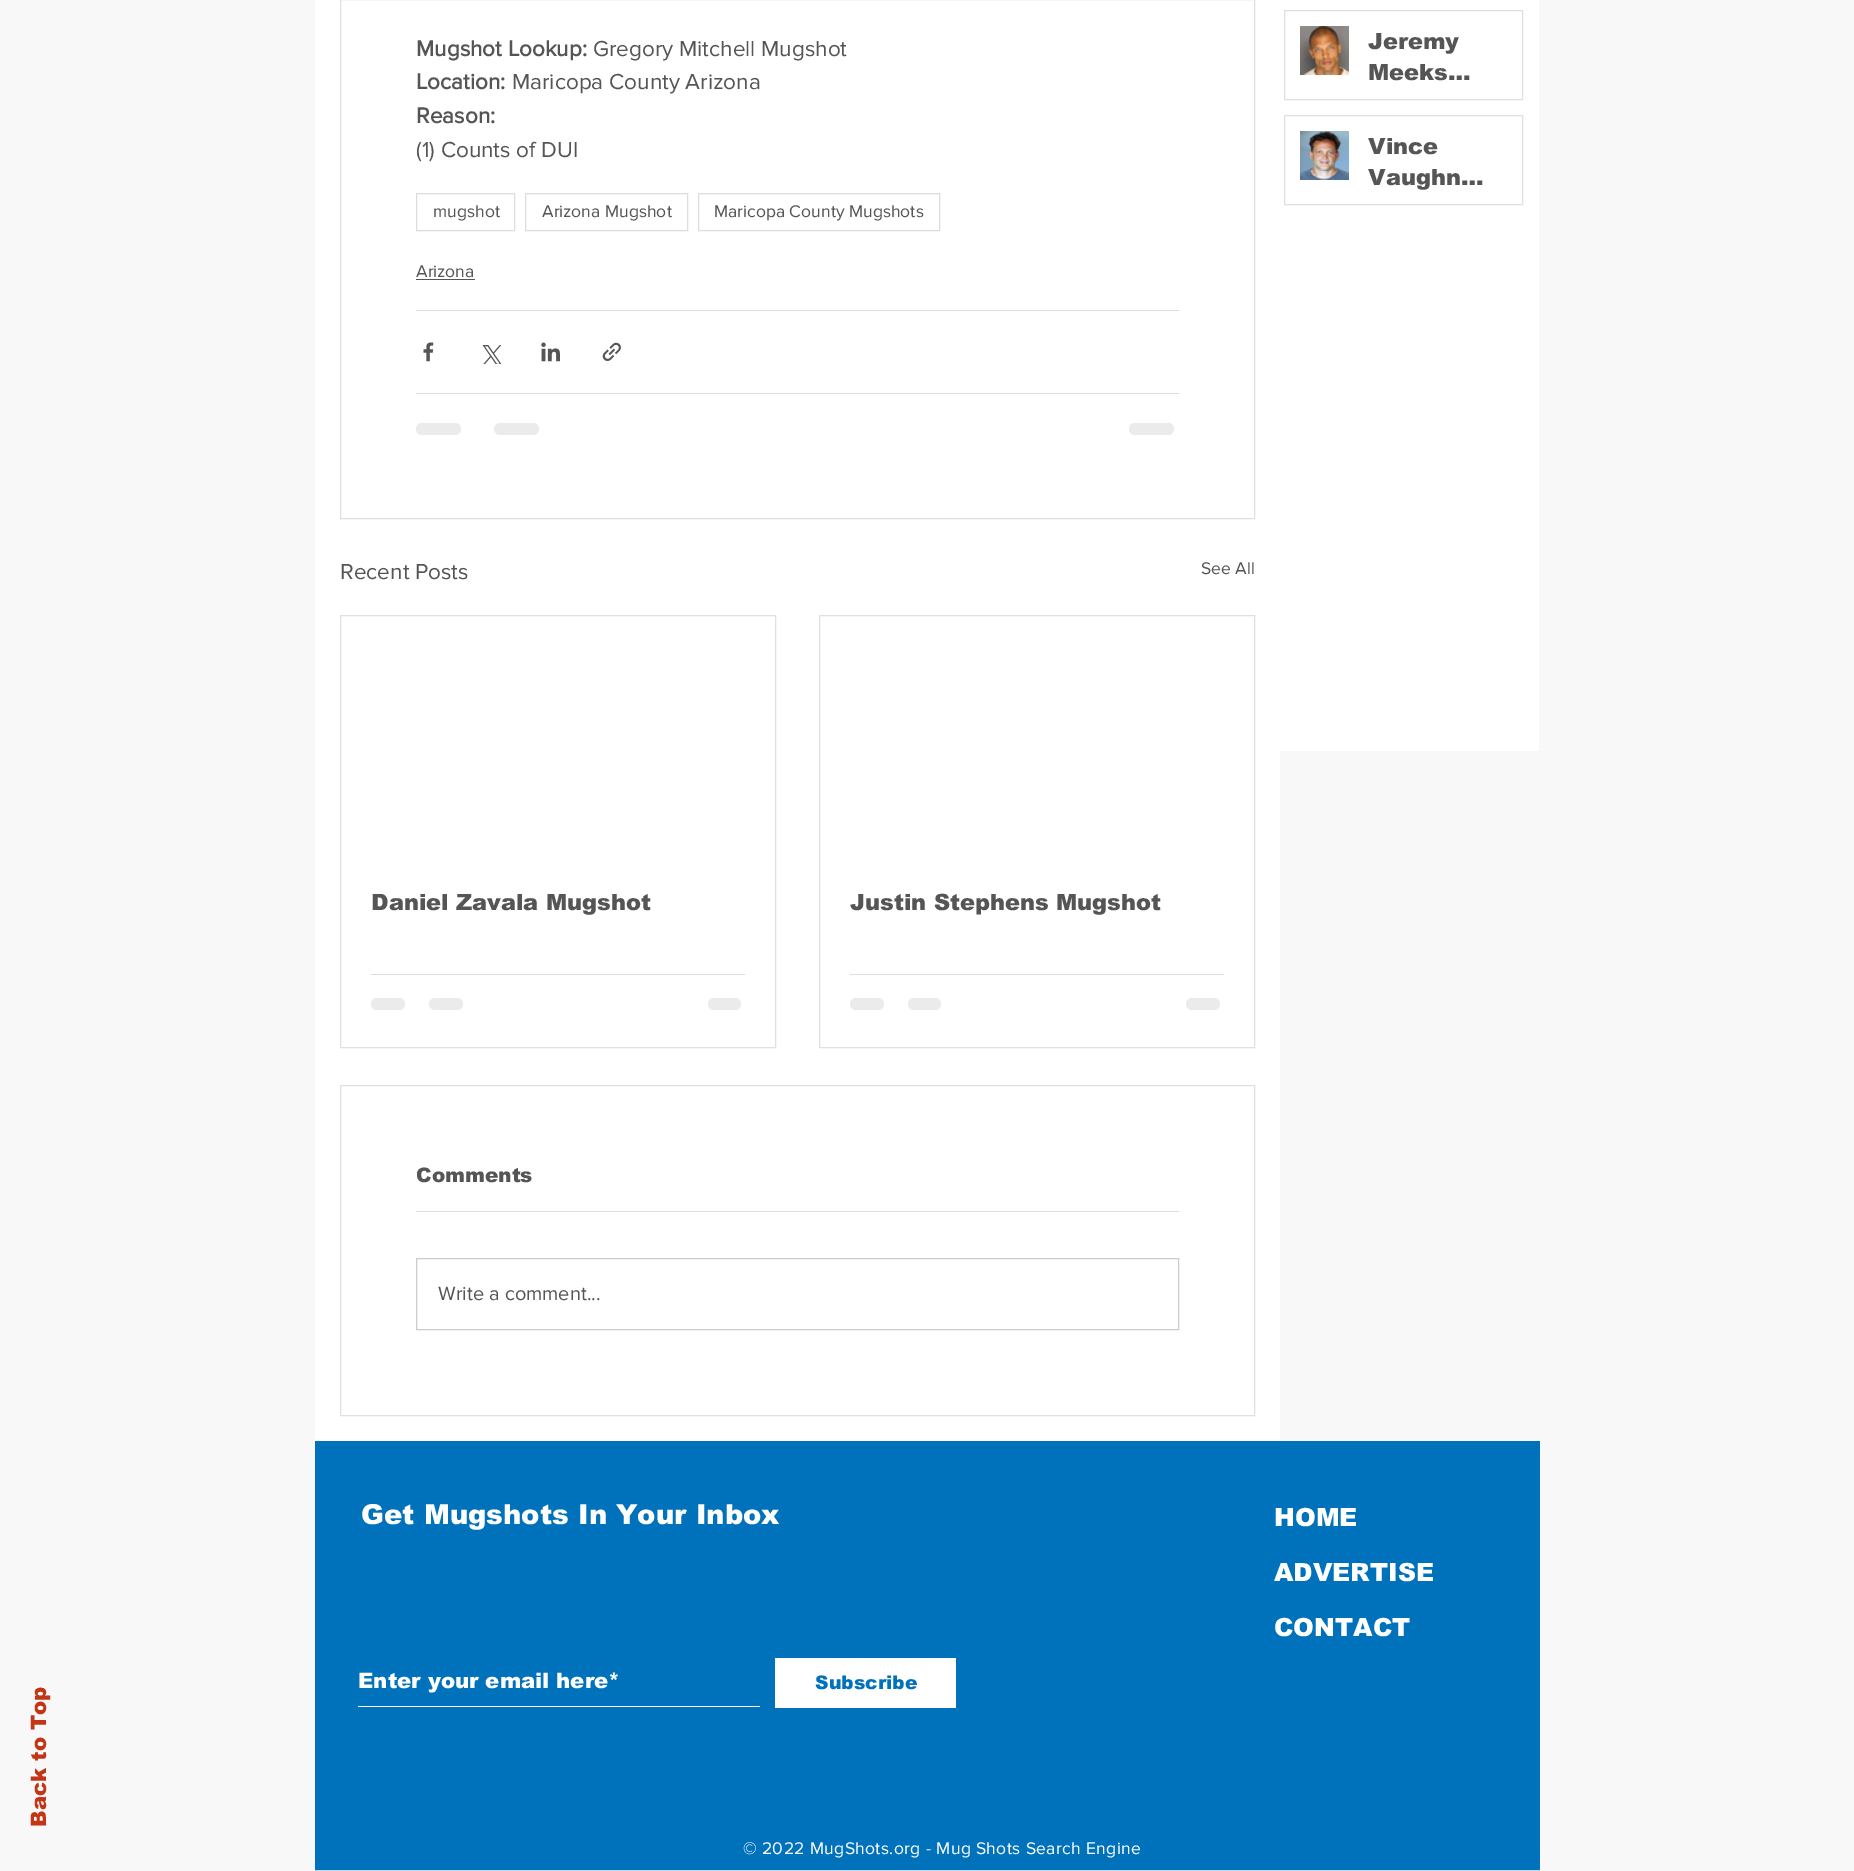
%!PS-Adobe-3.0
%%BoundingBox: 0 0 1854 1871
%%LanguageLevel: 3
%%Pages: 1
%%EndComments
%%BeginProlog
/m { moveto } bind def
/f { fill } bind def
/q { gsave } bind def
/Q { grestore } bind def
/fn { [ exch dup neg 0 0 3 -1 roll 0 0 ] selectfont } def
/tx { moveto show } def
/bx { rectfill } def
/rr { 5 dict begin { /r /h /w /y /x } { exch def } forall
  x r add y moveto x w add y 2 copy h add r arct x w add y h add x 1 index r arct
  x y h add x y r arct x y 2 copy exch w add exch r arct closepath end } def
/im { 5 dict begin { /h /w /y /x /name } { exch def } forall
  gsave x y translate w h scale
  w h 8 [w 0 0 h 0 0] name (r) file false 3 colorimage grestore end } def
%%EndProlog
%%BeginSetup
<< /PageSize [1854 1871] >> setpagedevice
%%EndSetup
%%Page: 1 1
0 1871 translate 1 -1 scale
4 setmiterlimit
0.973 setgray
0 0 1854 1871 bx
1 setgray
315 0 965 1441 bx
0.878 setgray
340.5 -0.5 914 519 rectstroke
/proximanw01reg-Bold 22.5 fn
0.333 setgray
(Mugshot Lookup:) 416 56 tx
/proximanw01reg-Regular 22.5 fn
(Gregory Mitchell Mugshot) 593 56 tx
/proximanw01reg-Bold 22.5 fn
(Location:) 416 89 tx
/proximanw01reg-Regular 22.5 fn
(Maricopa County Arizona) 512 89 tx
/proximanw01reg-Bold 22.5 fn
(Reason:) 416 123 tx
/proximanw01reg-Regular 22.5 fn
(\(1\) Counts of DUI) 416 157 tx
0.867 setgray
416.5 193.5 98 37 rectstroke
/proximanw01reg-Regular 17.5 fn
0.333 setgray
(mugshot) 433 217 tx
0.867 setgray
525.5 193.5 162 37 rectstroke
0.333 setgray
(Arizona Mugshot) 542 217 tx
0.867 setgray
698.5 193.5 241 37 rectstroke
0.333 setgray
(Maricopa County Mugshots) 714 217 tx
(Arizona) 416 277 tx
416 279 59 1 bx
0.867 setgray
416 310 763 1 bx
(image0.raw) 423 342 11 20 im
(image1.raw) 482 345 19 19 im
(image2.raw) 541 342 19 20 im
(image3.raw) 602 342 19 19 im
416 393 763 1 bx
0.922 setgray
416 423 45 12 6 rr f
494 423 45 12 6 rr f
1129 423 45 12 6 rr f
/proximanw01reg-Regular 22.5 fn
0.333 setgray
(Recent Posts) 340 579 tx
/proximanw01reg-Regular 17.5 fn
(See All) 1201 574 tx
0.878 setgray
340.5 615.5 435 432 rectstroke
/arial-Black 22.5 fn
0.333 setgray
(Daniel Zavala Mugshot) 371 910 tx
0.867 setgray
371 974 374 1 bx
0.922 setgray
371 998 34 12 6 rr f
429 998 34 12 6 rr f
708 998 33 12 6 rr f
0.878 setgray
819.5 615.5 435 432 rectstroke
0.333 setgray
(Justin Stephens Mugshot) 850 910 tx
0.867 setgray
850 974 374 1 bx
0.922 setgray
850 998 34 12 6 rr f
908 998 33 12 6 rr f
1186 998 34 12 6 rr f
0.878 setgray
340.5 1085.5 914 330 rectstroke
/arial-Black 20 fn
0.333 setgray
(Comments) 416 1182 tx
0.867 setgray
416 1211 763 1 bx
0.8 setgray
416.5 1258.5 762 71 rectstroke
/proximanw01reg-Regular 20 fn
0.333 setgray
(Write a comment...) 438 1300 tx
1 setgray
1280 0 259 751 bx
0.878 setgray
1284.5 10.5 238 89 rectstroke
(image4.raw) 1300 26 49 49 im
/arial-Black 22.5 fn
0.333 setgray
(Jeremy) 1368 49 tx
(Meeks…) 1368 80 tx
0.878 setgray
1284.5 115.5 238 89 rectstroke
(image5.raw) 1300 131 49 49 im
0.333 setgray
(Vince) 1368 154 tx
(Vaughn…) 1368 185 tx
/arial-Black 21.25 fn
0.761 0.212 0.086 setrgbcolor
q 46 1827 translate -90 rotate 0 0 m (Back to Top) show Q
0 0.447 0.737 setrgbcolor
315 1441 1225 429 bx
0.749 0.863 0.933 setrgbcolor
315 1870 1225 1 bx
/arial-Black 27.5 fn
1 setgray
(Get Mugshots In Your Inbox) 361 1524 tx
/arial-Black 25 fn
(HOME) 1274 1526 tx
(ADVERTISE) 1274 1581 tx
(CONTACT) 1274 1636 tx
358 1706 402 1 bx
/arial-Black 21.25 fn
(Enter your email here*) 358 1688 tx
775 1658 181 50 bx
/arial-Black 18.75 fn
0 0.447 0.737 setrgbcolor
(Subscribe) 815 1689 tx
/proximanw01reg-Regular 17.5 fn
1 setgray
743 1854 m 0.35 0 (© 2022 MugShots.org - Mug Shots Search Engine) ashow
showpage
%%EOF
